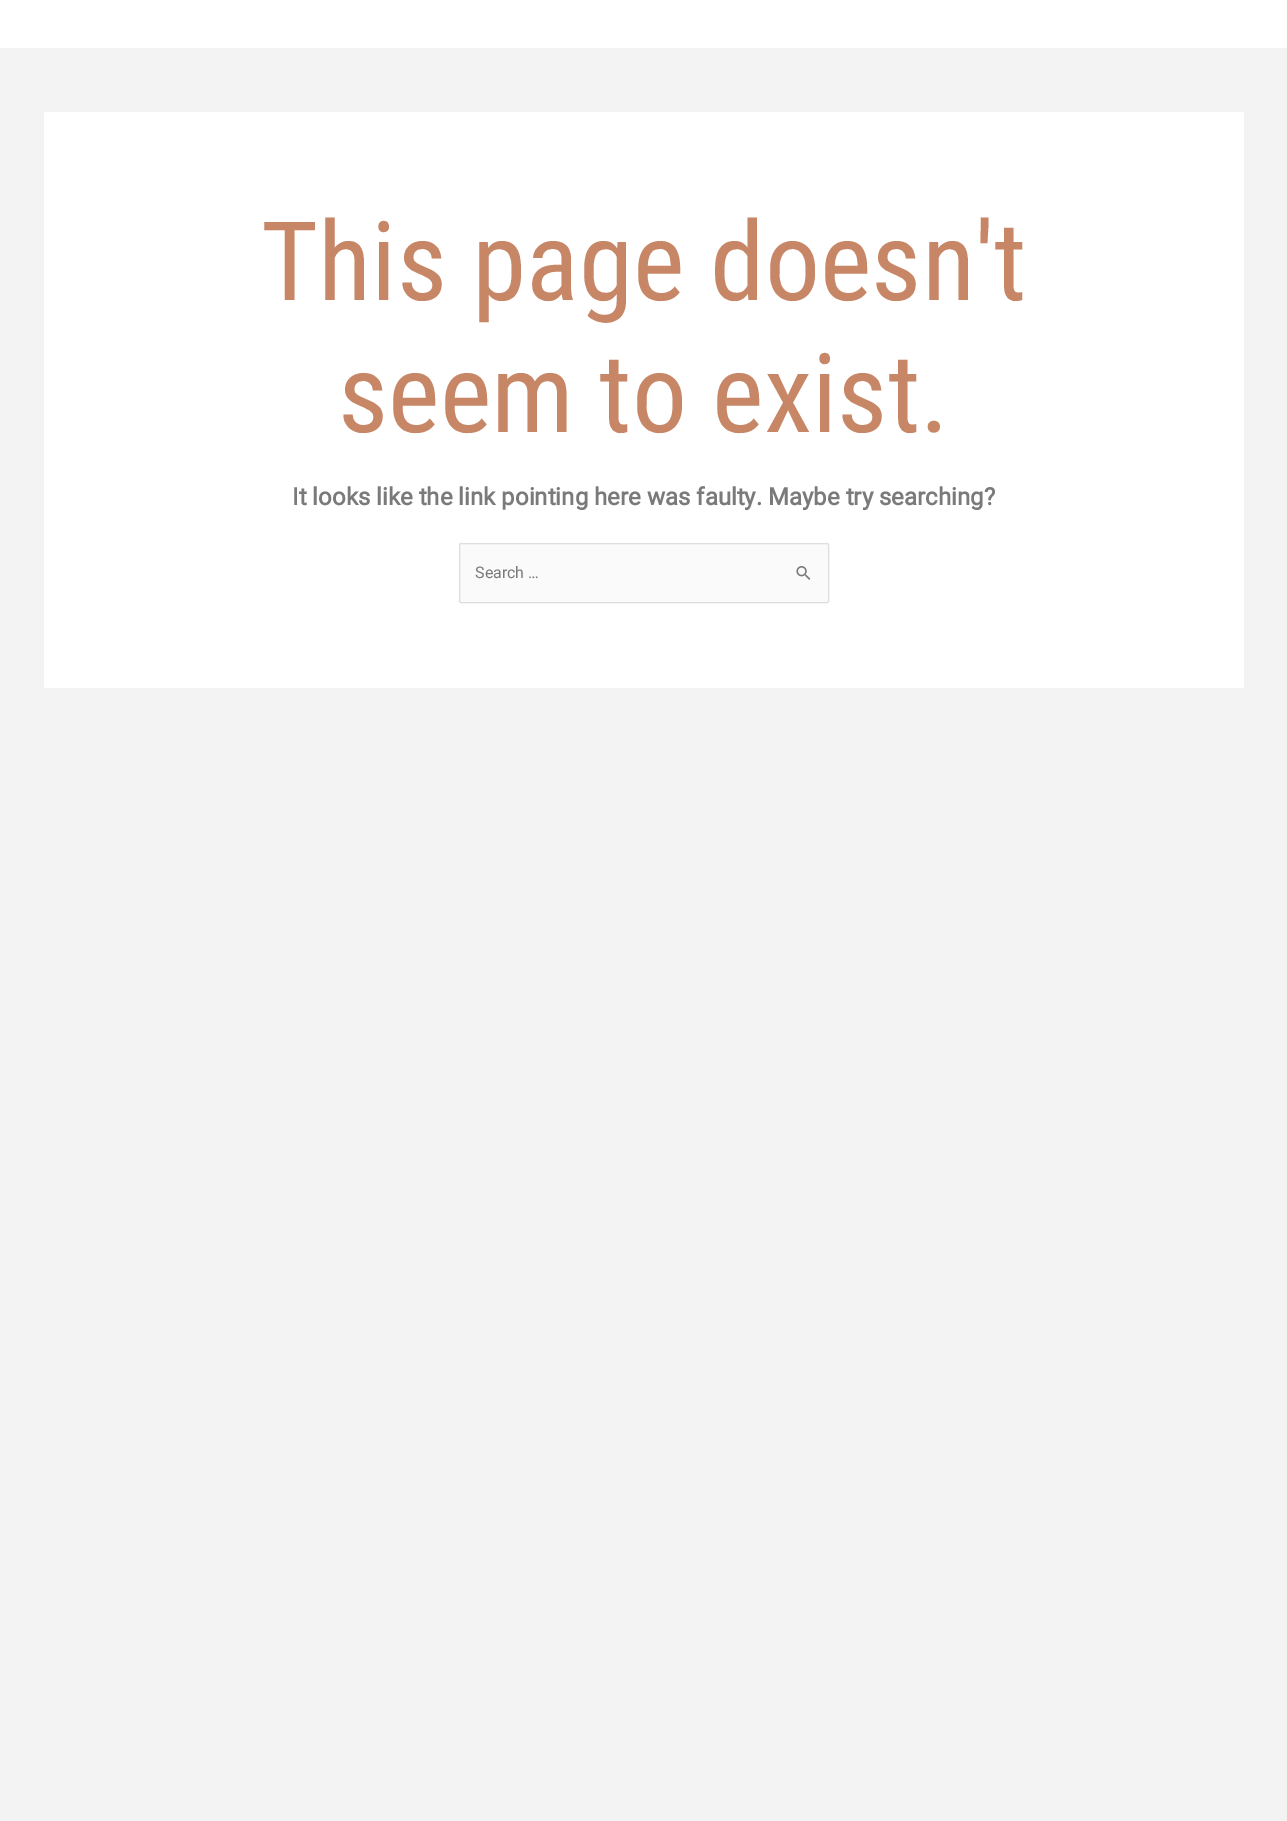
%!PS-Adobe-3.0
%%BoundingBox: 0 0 1287 1821
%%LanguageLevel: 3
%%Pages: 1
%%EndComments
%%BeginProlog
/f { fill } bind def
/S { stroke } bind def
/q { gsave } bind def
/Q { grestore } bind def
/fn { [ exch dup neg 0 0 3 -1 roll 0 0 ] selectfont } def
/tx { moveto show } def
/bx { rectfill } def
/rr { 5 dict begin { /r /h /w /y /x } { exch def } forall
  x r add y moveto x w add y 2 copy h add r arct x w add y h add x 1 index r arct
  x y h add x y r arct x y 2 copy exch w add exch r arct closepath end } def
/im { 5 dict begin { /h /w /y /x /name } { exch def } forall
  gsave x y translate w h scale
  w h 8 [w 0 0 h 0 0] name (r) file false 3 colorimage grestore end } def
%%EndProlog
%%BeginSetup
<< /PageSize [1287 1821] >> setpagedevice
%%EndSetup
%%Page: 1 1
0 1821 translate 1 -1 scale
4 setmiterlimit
0.953 setgray
0 0 1287 1821 bx
1 setgray
0 0 1287 48 bx
44 112 1200 576 bx
/RobotoCondensed-Regular 110 fn
0.78 0.525 0.396 setrgbcolor
(This page doesn't) 261 300 tx
(seem to exist.) 338 432 tx
/Roboto-Bold 24 fn
0.478 setgray
(It looks like the link pointing here was faulty. Maybe try searching?) 292 505 tx
0.98 setgray
459.5 543.5 369 59 1.5 rr q f Q
0.867 setgray
S
/Roboto-Regular 16 fn
0.478 setgray
(Search …) 475 578 tx
(image0.raw) 796 566 15 14 im
showpage
%%EOF
